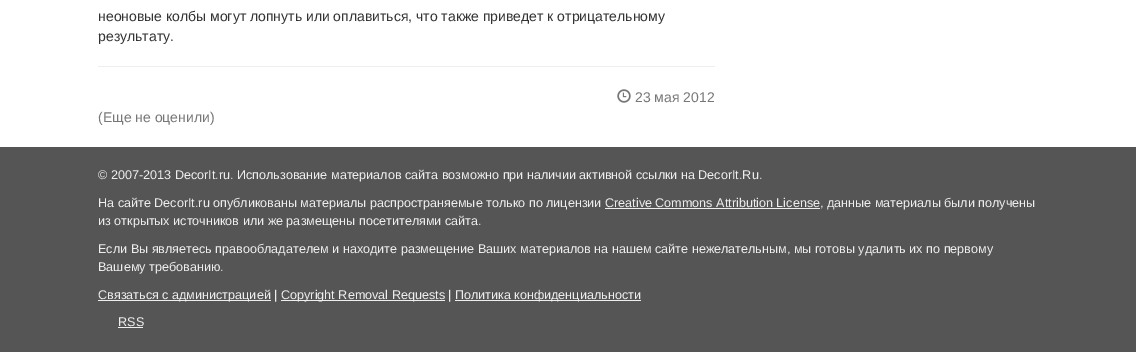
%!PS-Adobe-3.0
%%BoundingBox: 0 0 1136 352
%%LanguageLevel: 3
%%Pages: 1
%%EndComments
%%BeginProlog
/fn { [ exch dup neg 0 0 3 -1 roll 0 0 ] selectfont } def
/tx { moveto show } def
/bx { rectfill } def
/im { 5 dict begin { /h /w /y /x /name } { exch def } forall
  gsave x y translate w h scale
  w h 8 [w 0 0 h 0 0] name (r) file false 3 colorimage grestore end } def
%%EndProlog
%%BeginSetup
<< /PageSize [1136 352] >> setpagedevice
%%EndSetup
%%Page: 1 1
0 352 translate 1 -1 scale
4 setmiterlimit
1 setgray
0 0 1136 352 bx
/LiberationSans-Regular 14 fn
0.2 setgray
(неоновые колбы могут лопнуть или оплавиться, что также приведет к отрицательному) 98 21 tx
(результату.) 98 41 tx
0.933 setgray
98 66 617 1 bx
(image0.raw) 617 89 14 14 im
0.467 setgray
(23 мая 2012) 635 102 tx
(\(Еще не оценили\)) 98 122 tx
0.333 setgray
0 147 1136 205 bx
/LiberationSans-Regular 12.6 fn
0.933 setgray
(© 2007-2013 DecorIt.ru. Использование материалов сайта возможно при наличии активной ссылки на DecorIt.Ru.) 98 179 tx
(На сайте DecorIt.ru опубликованы материалы распространяемые только по лицензии Creative Commons Attribution License, данные материалы были получены) 98 207 tx
605 208 215 1 bx
(из открытых источников или же размещены посетителями сайта.) 98 225 tx
(Если Вы являетесь правообладателем и находите размещение Ваших материалов на нашем сайте нежелательным, мы готовы удалить их по первому) 98 253 tx
(Вашему требованию.) 98 271 tx
98 300 173 1 bx
(Связаться с администрацией |) 98 299 tx
281 300 164 1 bx
(Copyright Removal Requests |) 281 299 tx
455 300 186 1 bx
(Политика конфиденциальности) 455 299 tx
(RSS) 118 326 tx
118 327 25 1 bx
showpage
%%EOF
